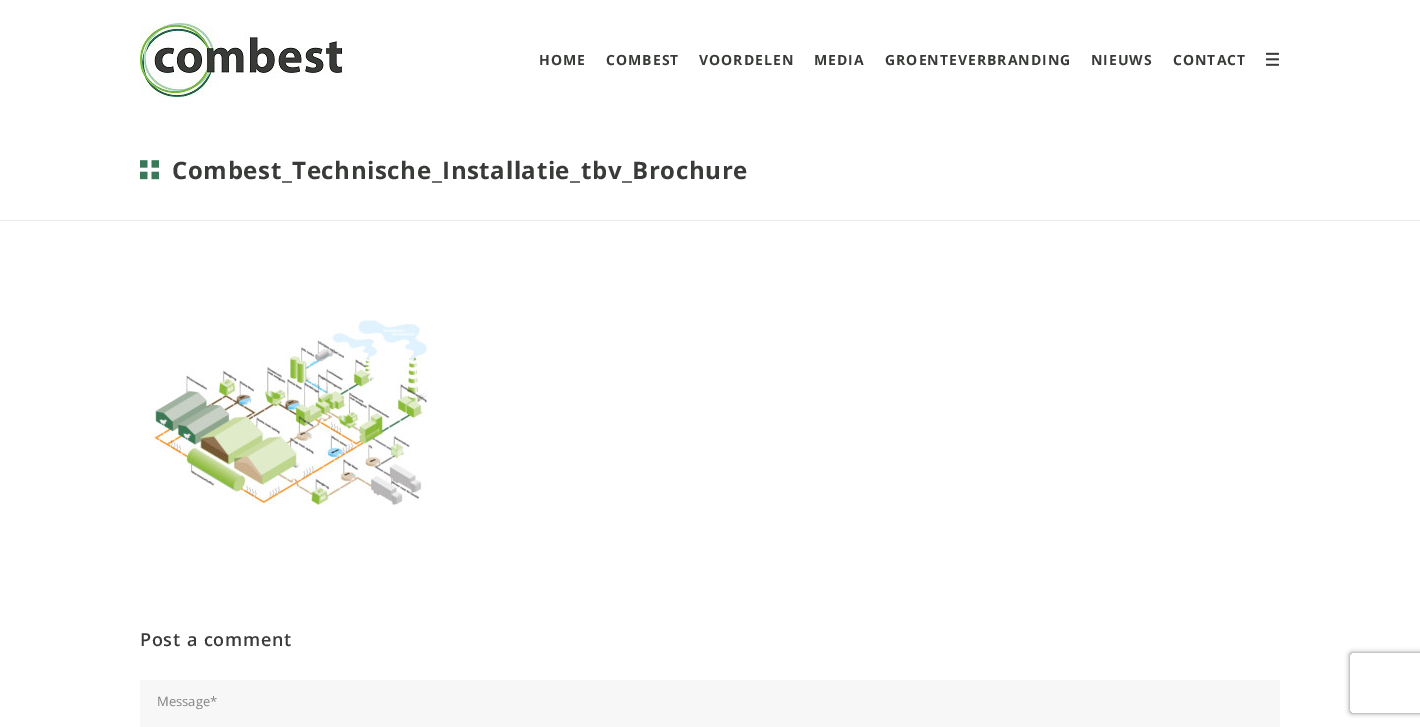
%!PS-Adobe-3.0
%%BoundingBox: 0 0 1420 727
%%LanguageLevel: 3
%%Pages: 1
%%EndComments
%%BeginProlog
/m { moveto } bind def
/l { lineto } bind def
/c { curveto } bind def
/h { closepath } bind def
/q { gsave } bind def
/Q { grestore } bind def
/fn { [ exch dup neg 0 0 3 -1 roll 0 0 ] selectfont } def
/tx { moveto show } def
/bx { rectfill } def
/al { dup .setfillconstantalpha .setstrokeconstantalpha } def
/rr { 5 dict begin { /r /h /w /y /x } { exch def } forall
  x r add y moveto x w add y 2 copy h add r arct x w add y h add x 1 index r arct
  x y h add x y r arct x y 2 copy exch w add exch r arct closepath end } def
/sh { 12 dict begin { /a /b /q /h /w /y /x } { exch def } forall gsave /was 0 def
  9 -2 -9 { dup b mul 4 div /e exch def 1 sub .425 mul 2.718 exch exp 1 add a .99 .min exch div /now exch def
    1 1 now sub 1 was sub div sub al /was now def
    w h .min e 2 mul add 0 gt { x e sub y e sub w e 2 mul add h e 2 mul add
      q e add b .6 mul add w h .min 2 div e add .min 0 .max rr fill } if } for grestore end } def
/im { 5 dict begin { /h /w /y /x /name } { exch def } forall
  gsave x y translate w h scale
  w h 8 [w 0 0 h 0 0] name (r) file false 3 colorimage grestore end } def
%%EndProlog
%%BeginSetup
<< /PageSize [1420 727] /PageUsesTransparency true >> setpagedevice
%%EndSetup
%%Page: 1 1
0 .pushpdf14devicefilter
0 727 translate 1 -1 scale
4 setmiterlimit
1 setgray
0 0 1420 727 bx
(image0.raw) 140 23 207 74 im
/OpenSans-Bold 14 fn
0.22 0.231 0.22 setrgbcolor
539 65 m 1 0 (HOME) ashow
606 65 m 1 0 (COMBEST) ashow
699 65 m 1 0 (VOORDELEN) ashow
814 65 m 1 0 (MEDIA) ashow
885 65 m 1 0 (GROENTEVERBRANDING) ashow
1091 65 m 1 0 (NIEUWS) ashow
1173 65 m 1 0 (CONTACT) ashow
(image1.raw) 1266 52 13 14 im
0.918 setgray
0 220 1420 1 bx
(image2.raw) 140 160 19 20 im
/OpenSans-Bold 24 fn
0.22 0.231 0.22 setrgbcolor
172 179 m 0.6 0 (Combest_Technische_Installatie_tbv_Brochure) ashow
(image3.raw) 148 319 280 186 im
/OpenSans-SemiBold 18 fn
140 646 m 1 0 32 0.6 0 (Post a comment) awidthshow
0.969 setgray
140 680 1140 47 bx
/OpenSans-Regular 13 fn
0.514 setgray
(Message*) 157 706 tx
q
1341 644 m 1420 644 l 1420 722 l 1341 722 l h 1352 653 m 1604 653 l 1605 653 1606 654 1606 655 c 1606 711 l 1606 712 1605 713 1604 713 c 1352 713 l 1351 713 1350 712 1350 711 c 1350 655 l 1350 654 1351 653 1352 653 c h eoclip newpath
0.502 setgray
1350 653 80 60 2 2.5 1 sh
Q
.poppdf14devicefilter showpage
%%EOF
